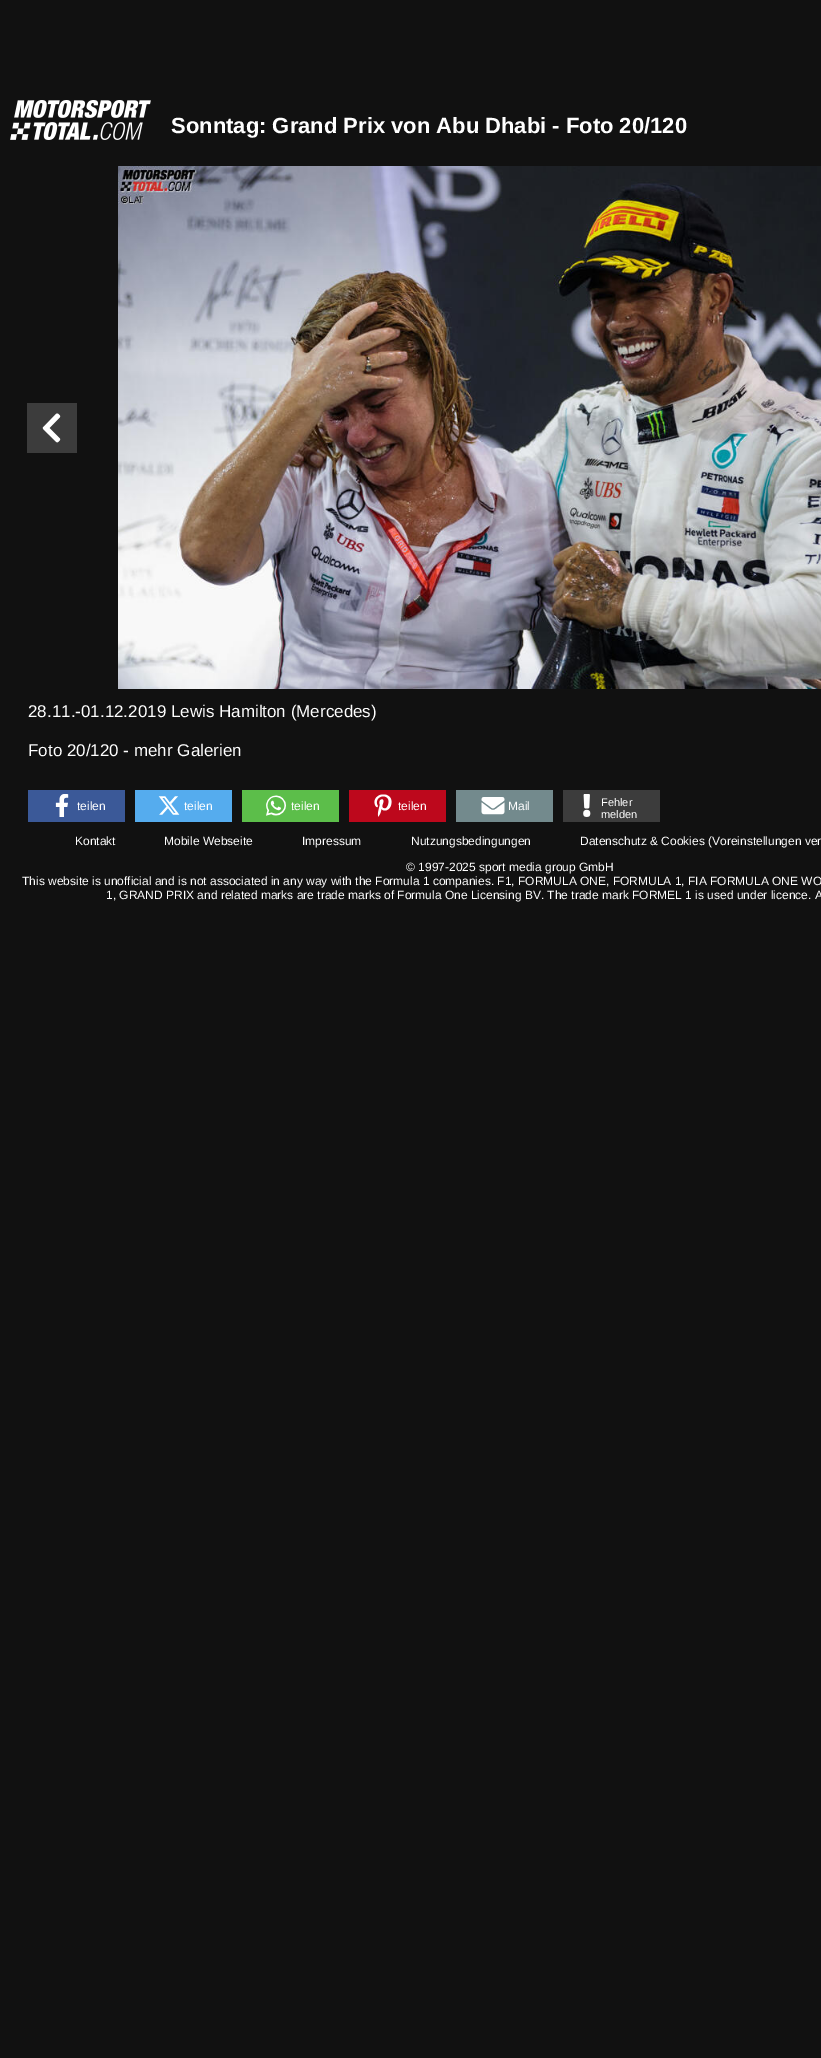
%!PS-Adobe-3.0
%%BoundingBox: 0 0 821 2058
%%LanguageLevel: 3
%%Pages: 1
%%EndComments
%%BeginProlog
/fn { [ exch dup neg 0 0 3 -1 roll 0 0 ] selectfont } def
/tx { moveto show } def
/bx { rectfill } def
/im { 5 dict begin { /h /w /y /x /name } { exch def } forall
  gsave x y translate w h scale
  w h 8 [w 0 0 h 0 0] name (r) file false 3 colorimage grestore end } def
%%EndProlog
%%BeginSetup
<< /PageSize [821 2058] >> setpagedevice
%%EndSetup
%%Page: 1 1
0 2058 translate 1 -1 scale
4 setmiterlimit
0.067 setgray
0 0 821 2058 bx
(image0.raw) 10 100 141 40 im
/LiberationSans-Bold 22 fn
1 setgray
(Sonntag: Grand Prix von Abu Dhabi - Foto 20/120) 171 133 tx
0.235 setgray
27 403 50 50 bx
(image1.raw) 42 413 19 30 im
(image2.raw) 118 166 703 523 im
/LiberationSans-Regular 17 fn
1 setgray
(28.11.-01.12.2019 Lewis Hamilton \(Mercedes\)) 28 717 tx
(Foto 20/120 - mehr Galerien) 28 756 tx
0.231 0.349 0.596 setrgbcolor
28 790 97 32 bx
(image3.raw) 55 794 14 23 im
/LiberationSans-Regular 12 fn
1 setgray
(teilen) 77 810 tx
0.333 0.675 0.933 setrgbcolor
135 790 97 32 bx
(image4.raw) 158 796 22 19 im
1 setgray
(teilen) 184 810 tx
0.361 0.745 0.29 setrgbcolor
242 790 97 32 bx
(image5.raw) 266 795 20 21 im
1 setgray
(teilen) 291 810 tx
0.741 0.031 0.11 setrgbcolor
349 790 97 32 bx
(image6.raw) 374 794 18 23 im
1 setgray
(teilen) 398 810 tx
0.451 0.541 0.553 setrgbcolor
456 790 97 32 bx
(image7.raw) 481 797 24 18 im
1 setgray
(Mail) 508 810 tx
0.235 setgray
563 790 97 32 bx
(image8.raw) 583 794 8 23 im
/LiberationSans-Regular 11 fn
1 setgray
(Fehler) 601 806 tx
(melden) 601 818 tx
/LiberationSans-Regular 12 fn
(Kontakt) 75 845 tx
(Mobile Webseite) 164 845 tx
(Impressum) 302 845 tx
(Nutzungsbedingungen) 411 845 tx
(Datenschutz & Cookies \(Voreinstellungen ver) 580 845 tx
(© 1997-2025 sport media group GmbH) 406 871 tx
(This website is unofficial and is not associated in any way with the Formula 1 companies. F1, FORMULA ONE, FORMULA 1, FIA FORMULA ONE WO) 22 885 tx
(1, GRAND PRIX and related marks are trade marks of Formula One Licensing BV. The trade mark FORMEL 1 is used under licence. A) 106 899 tx
showpage
%%EOF
